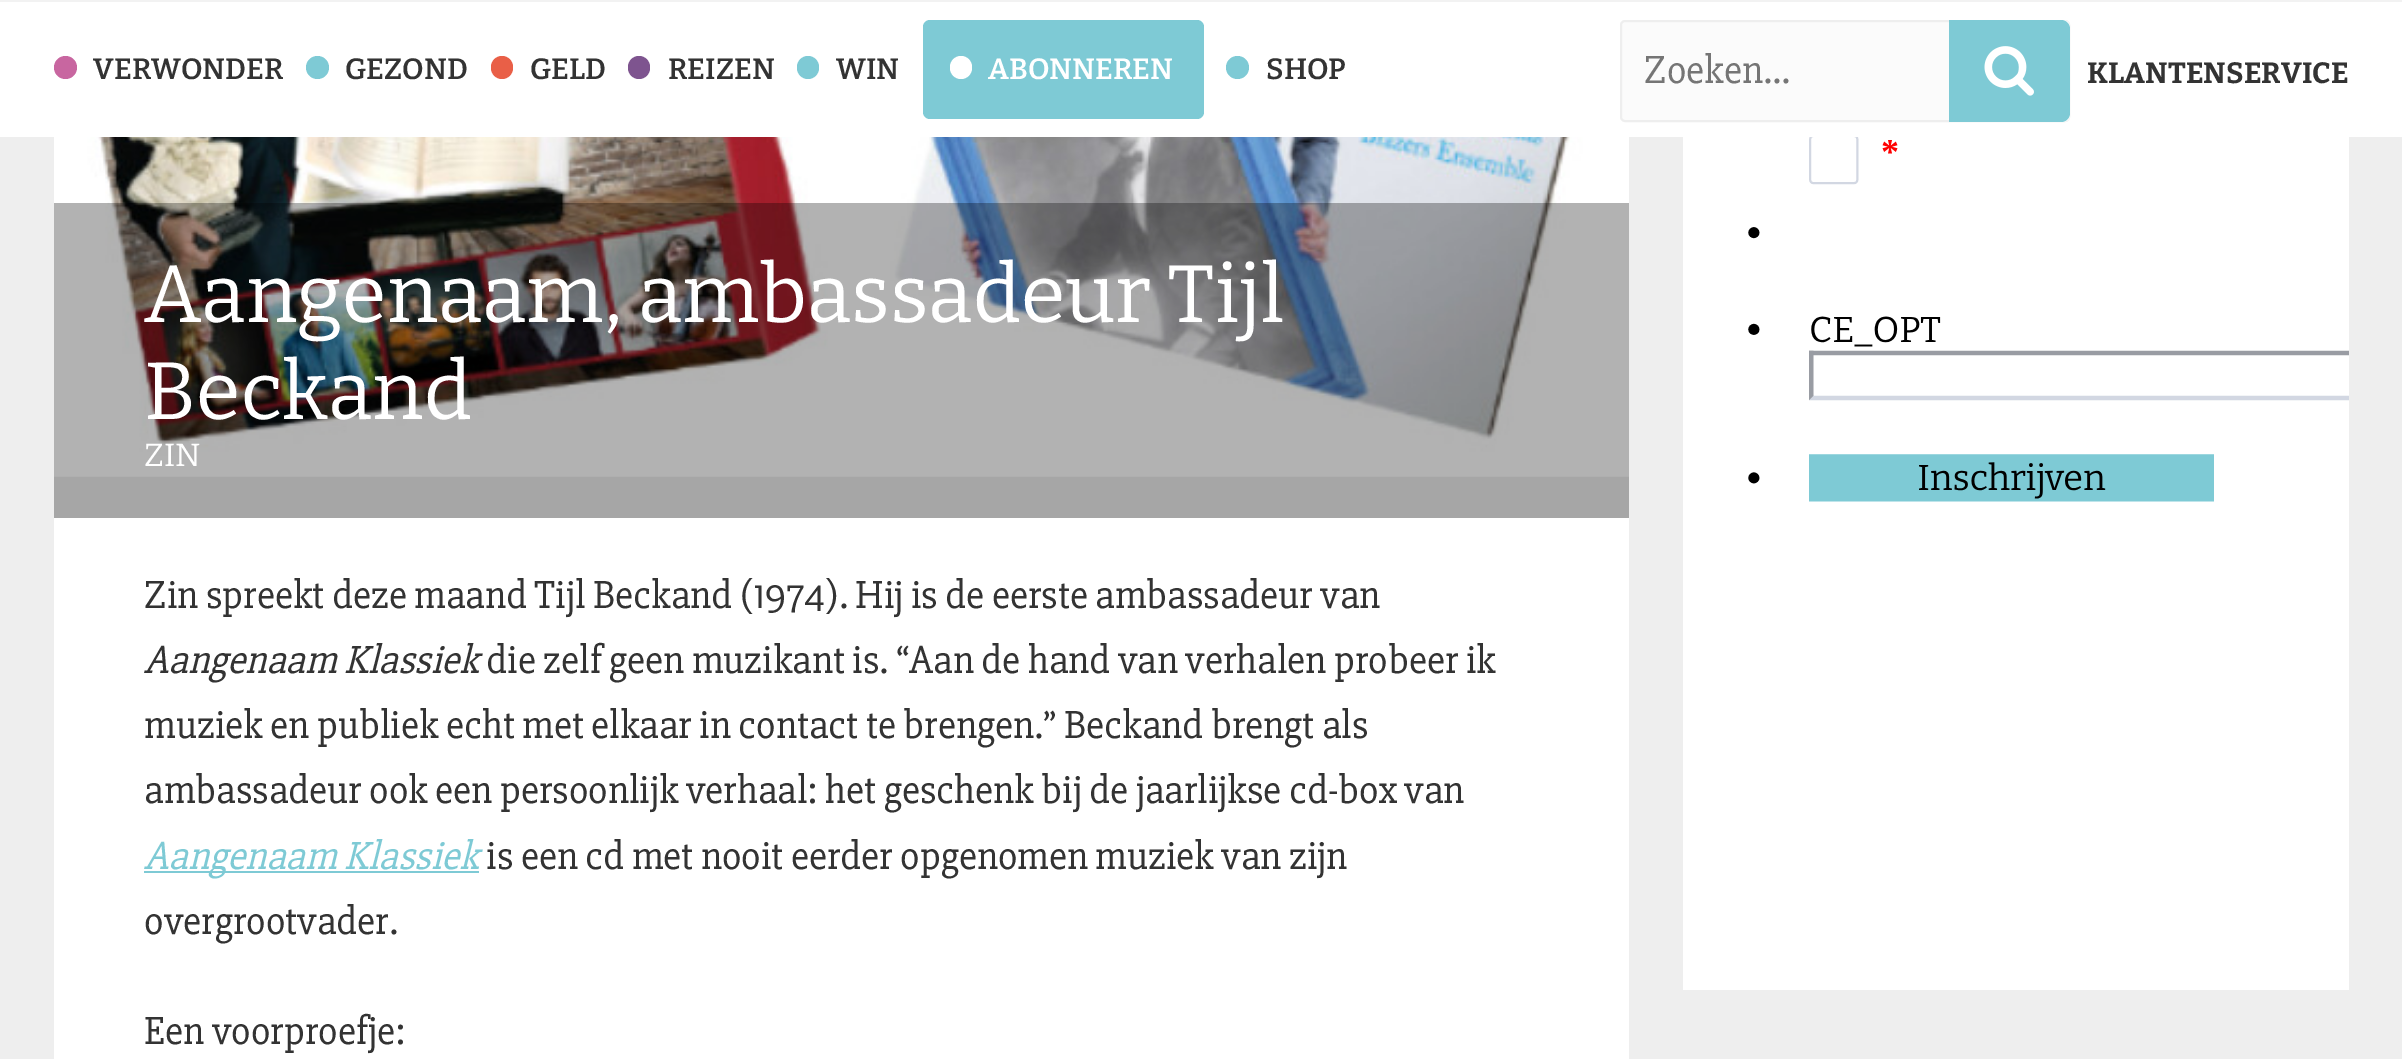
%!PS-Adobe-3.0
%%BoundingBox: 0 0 2402 1059
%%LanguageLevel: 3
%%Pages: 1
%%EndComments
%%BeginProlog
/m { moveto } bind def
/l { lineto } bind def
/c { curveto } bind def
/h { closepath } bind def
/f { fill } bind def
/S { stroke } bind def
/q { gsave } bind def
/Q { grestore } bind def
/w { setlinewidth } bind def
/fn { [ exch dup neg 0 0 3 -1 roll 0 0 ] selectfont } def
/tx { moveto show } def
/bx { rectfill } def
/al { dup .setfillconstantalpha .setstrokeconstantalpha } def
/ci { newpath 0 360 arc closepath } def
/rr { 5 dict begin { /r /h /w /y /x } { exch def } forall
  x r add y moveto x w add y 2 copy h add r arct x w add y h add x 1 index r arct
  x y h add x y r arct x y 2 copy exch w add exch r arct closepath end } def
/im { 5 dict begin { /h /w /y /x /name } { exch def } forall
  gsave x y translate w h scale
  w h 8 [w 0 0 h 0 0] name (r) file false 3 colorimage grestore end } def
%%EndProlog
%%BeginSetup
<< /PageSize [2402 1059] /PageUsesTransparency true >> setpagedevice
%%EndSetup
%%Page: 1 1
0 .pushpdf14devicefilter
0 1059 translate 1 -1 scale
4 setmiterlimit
0.933 setgray
0 0 2402 1059 bx
1 setgray
0 2 2402 135 bx
0.949 setgray
0 0 2402 2 bx
0.784 0.4 0.627 setrgbcolor
65.5 67.5 11.5 ci f
/Bitter-SemiBold 29.25 fn
0.2 setgray
(VERWONDER) 93 79 tx
0.494 0.792 0.835 setrgbcolor
317.5 67.5 11.5 ci f
0.2 setgray
(GEZOND) 345 79 tx
0.914 0.373 0.278 setrgbcolor
491 56 22 23 11 rr f
0.2 setgray
(GELD) 530 79 tx
0.494 0.329 0.561 setrgbcolor
628 56 22 23 11 rr f
0.2 setgray
(REIZEN) 668 79 tx
0.494 0.792 0.835 setrgbcolor
797 56 22 23 11 rr f
0.2 setgray
(WIN) 836 79 tx
0.494 0.792 0.835 setrgbcolor
923 20 281 99 7 rr f
1 setgray
950 56 22 23 11 rr f
(ABONNEREN) 988 79 tx
0.494 0.792 0.835 setrgbcolor
1237.5 67.5 11.5 ci f
0.2 setgray
(SHOP) 1266 79 tx
0.984 setgray
1621 21 448 100 4 rr q f Q
0.933 setgray
2 w
S
/Slabo27px-Regular 40.5 fn
0.459 setgray
(Zoeken...) 1644 83 tx
1 setgray
1949 20 121 102 7 rr f
0.494 0.792 0.835 setrgbcolor
1949 20 m 2061 20 l 2066 20 2070 24 2070 29 c 2070 113 l 2070 118 2066 122 2061 122 c 1949 122 l h f
(image0.raw) 1984 46 50 50 im
/Bitter-Bold 29.25 fn
0.2 setgray
(KLANTENSERVICE) 2087 83 tx
(image1.raw) 54 137 1575 340 im
0.3 al
0 setgray
54 203 1575 315 bx
/Bitter-Regular 81 fn
1 al
1 setgray
(Aangenaam, ambassadeur Tijl) 144 322 tx
(Beckand) 144 419 tx
/Bitter-Regular 32 fn
(ZIN) 144 466 tx
54 518 1575 541 bx
/Slabo27px-Regular 40.5 fn
0.2 setgray
(Zin spreekt deze maand Tijl Beckand \(1974\). Hij is de eerste ambassadeur van) 144 608 tx
/Slabo27px-Italic 40.5 fn
(Aangenaam Klassiek) 144 673 tx
/Slabo27px-Regular 40.5 fn
(die zelf geen muzikant is. “Aan de hand van verhalen probeer ik) 486 673 tx
(muziek en publiek echt met elkaar in contact te brengen.” Beckand brengt als) 144 738 tx
(ambassadeur ook een persoonlijk verhaal: het geschenk bij de jaarlijkse cd-box van) 144 803 tx
0.494 0.792 0.835 setrgbcolor
144 871 335 2 bx
/Slabo27px-Italic 40.5 fn
(Aangenaam Klassiek) 144 869 tx
/Slabo27px-Regular 40.5 fn
0.2 setgray
(is een cd met nooit eerder opgenomen muziek van zijn) 486 869 tx
(overgrootvader.) 144 934 tx
(Een voorproefje:) 144 1044 tx
1 setgray
1683 137 666 853 bx
(image2.raw) 1748 137 601 365 im
.poppdf14devicefilter showpage
%%EOF
